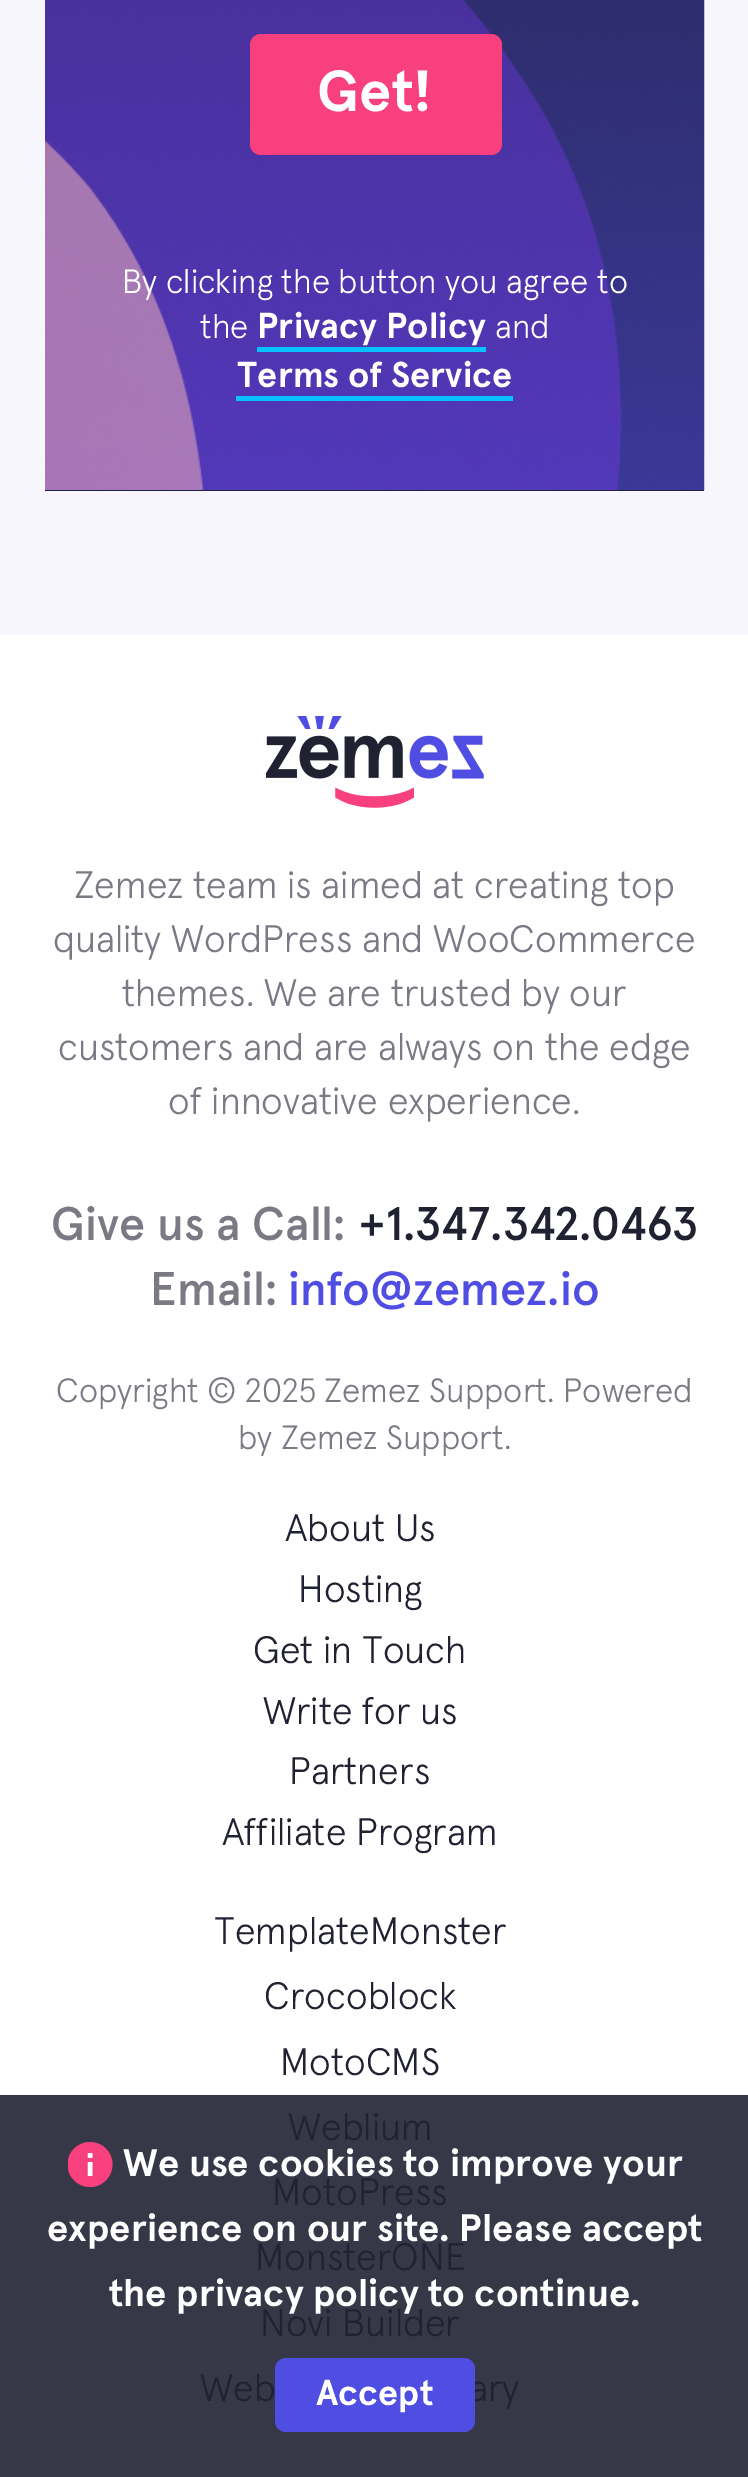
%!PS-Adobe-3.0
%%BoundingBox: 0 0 748 2477
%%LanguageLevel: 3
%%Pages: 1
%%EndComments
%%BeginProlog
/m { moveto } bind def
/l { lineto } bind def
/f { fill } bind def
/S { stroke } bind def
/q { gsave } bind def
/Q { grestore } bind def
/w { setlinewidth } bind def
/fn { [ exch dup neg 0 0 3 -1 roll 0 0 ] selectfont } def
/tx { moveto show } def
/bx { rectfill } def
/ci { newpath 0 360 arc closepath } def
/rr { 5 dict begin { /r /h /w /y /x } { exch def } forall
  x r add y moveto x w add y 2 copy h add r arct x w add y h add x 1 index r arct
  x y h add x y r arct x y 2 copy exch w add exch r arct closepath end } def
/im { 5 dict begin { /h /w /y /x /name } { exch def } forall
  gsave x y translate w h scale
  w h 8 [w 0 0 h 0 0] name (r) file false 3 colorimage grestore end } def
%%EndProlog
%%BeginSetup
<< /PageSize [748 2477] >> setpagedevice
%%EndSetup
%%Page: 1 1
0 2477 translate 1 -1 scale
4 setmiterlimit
1 setgray
0 0 748 2477 bx
0.212 0.22 0.278 setrgbcolor
0 2095 748 382 bx
0.969 0.965 0.992 setrgbcolor
0 0 748 635 bx
0.129 0.129 0.263 setrgbcolor
45 490 659 1 bx
(image0.raw) 45 0 660 490 im
0.973 0.251 0.494 setrgbcolor
250 34 252 121 11 rr f
/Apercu-Bold 58 fn
1 setgray
(Get!) 317 111 tx
/Apercu-Light 33.75 fn
(By clicking the button you agree to) 122 293 tx
(the) 200 338 tx
/Apercu-Bold 36 fn
(Privacy Policy) 257 338 tx
0.027 0.761 1 setrgbcolor
257 347 229 5 bx
/Apercu-Light 33.75 fn
1 setgray
(and) 495 338 tx
/Apercu-Bold 36 fn
(Terms of Service) 237 387 tx
0.027 0.761 1 setrgbcolor
236 396 277 5 bx
(image1.raw) 266 716 218 92 im
/Apercu-Light 38.25 fn
0.475 0.478 0.518 setrgbcolor
(Zemez team is aimed at creating top) 74 898 tx
(quality WordPress and WooCommerce) 53 952 tx
(themes. We are trusted by our) 122 1006 tx
(customers and are always on the edge) 58 1060 tx
(of innovative experience.) 168 1114 tx
/Apercu-Medium 47.25 fn
(Give us a Call:) 51 1240 tx
0.125 0.133 0.196 setrgbcolor
(+1.347.342.0463) 358 1240 tx
0.475 0.478 0.518 setrgbcolor
(Email:) 150 1305 tx
0.314 0.302 0.886 setrgbcolor
(info@zemez.io) 288 1305 tx
/Apercu-Light 33.75 fn
0.475 0.478 0.518 setrgbcolor
(Copyright © 2025 Zemez Support. Powered) 56 1402 tx
(by Zemez Support.) 238 1449 tx
/Apercu-Light 38.25 fn
0.125 0.133 0.196 setrgbcolor
(About Us) 285 1541 tx
(Hosting) 298 1602 tx
(Get in Touch) 253 1663 tx
(Write for us) 263 1724 tx
(Partners) 289 1784 tx
(Affiliate Program) 222 1845 tx
(TemplateMonster) 214 1944 tx
(Crocoblock) 264 2009 tx
(MotoCMS) 280 2075 tx
(Weblium) 288 2140 tx
(MotoPress) 272 2205 tx
(MonsterONE) 255 2270 tx
(Novi Builder) 260 2336 tx
(Web) 200 2401 tx
(ary) 469 2401 tx
q
68 2142 45 45 rectclip
0.973 0.251 0.494 setrgbcolor
90 2164.5 22.5 ci f
Q
/Apercu-Bold 38.25 fn
1 setgray
(We use cookies to improve your) 123 2176 tx
4.5 w
90 2162 m 90 2176 l 90 2153 m 90 2158 l S
(experience on our site. Please accept) 47 2241 tx
(the privacy policy to continue.) 109 2306 tx
0.314 0.302 0.886 setrgbcolor
275 2358 200 74 11 rr f
/Apercu-Bold 36 fn
1 setgray
(Accept) 316 2405 tx
showpage
%%EOF
